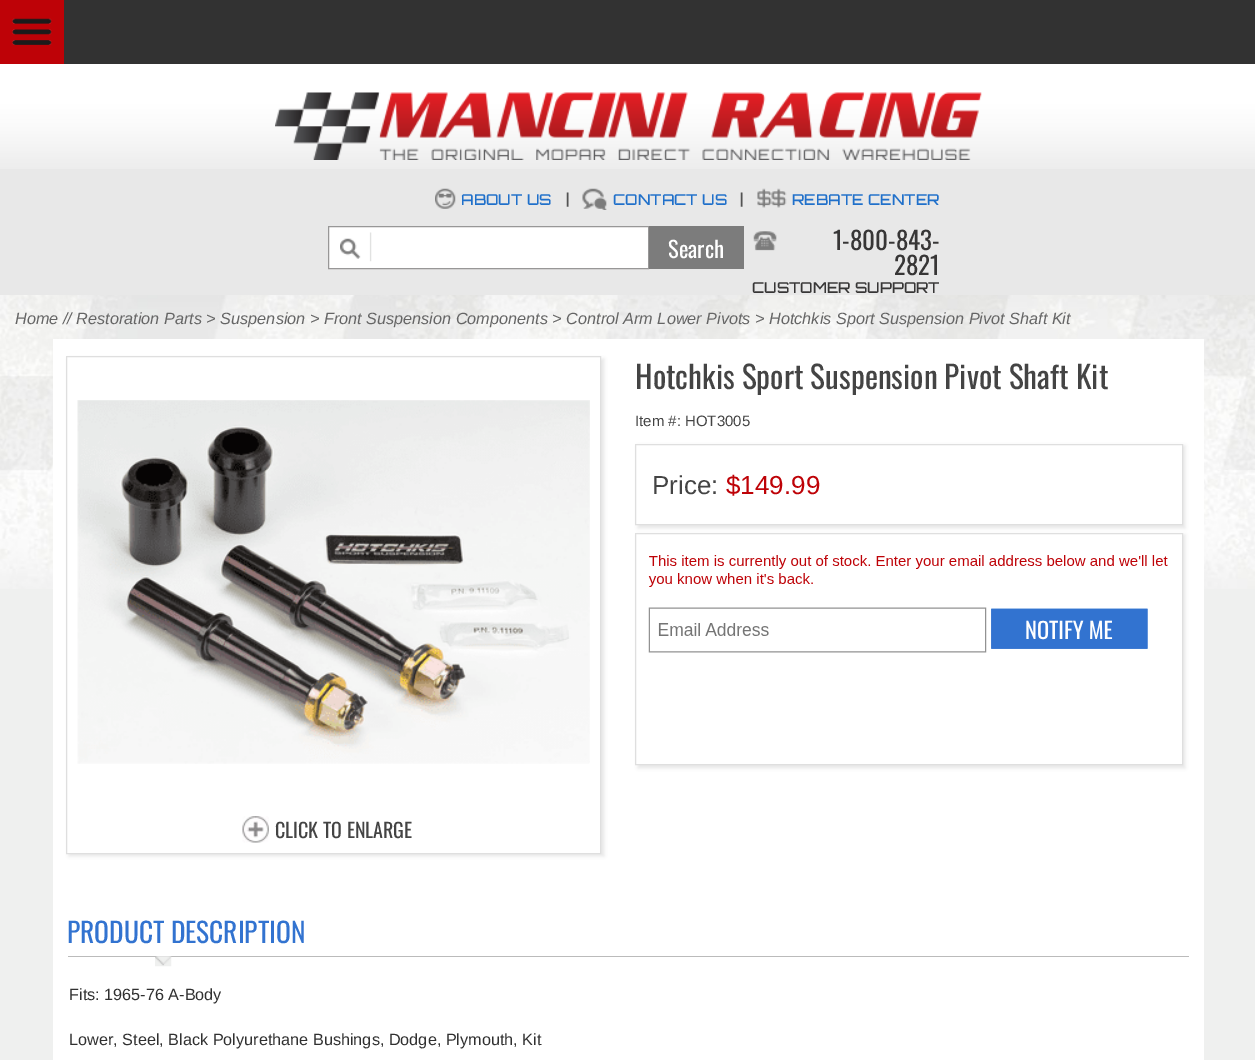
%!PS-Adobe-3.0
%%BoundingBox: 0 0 1255 1060
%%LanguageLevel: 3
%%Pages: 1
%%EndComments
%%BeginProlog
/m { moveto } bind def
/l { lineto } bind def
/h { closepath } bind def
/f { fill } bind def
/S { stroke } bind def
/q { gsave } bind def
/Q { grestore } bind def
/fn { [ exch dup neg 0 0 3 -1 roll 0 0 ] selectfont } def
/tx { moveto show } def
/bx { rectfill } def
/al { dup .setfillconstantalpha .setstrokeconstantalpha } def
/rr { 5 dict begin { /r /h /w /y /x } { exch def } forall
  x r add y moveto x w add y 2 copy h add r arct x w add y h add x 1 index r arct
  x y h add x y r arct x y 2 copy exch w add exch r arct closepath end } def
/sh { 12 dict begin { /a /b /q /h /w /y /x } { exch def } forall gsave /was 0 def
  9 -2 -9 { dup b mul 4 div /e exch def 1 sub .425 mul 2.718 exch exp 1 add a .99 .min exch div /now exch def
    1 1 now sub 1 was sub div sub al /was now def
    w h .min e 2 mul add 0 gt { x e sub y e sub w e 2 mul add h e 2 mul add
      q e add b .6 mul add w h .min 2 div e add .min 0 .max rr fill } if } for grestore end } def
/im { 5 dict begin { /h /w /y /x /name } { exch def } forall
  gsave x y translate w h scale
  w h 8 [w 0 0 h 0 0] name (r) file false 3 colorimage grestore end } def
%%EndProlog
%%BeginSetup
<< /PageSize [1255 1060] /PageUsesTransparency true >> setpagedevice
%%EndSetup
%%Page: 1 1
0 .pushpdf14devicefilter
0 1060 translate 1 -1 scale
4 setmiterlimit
0.937 0.941 0.937 setrgbcolor
0 0 1255 1060 bx
(image0.raw) 0 295 1255 294 im
0.196 setgray
64 0 1191 64 bx
0.745 0.008 0.027 setrgbcolor
0 0 64 64 bx
(image1.raw) 12 18 40 27 im
0.91 setgray
0 169 1255 126 bx
(image2.raw) 0 64 1255 105 im
(image3.raw) 275 92 707 68 im
(image4.raw) 435 188 21 21 im
/Orbitron-Medium 15 fn
0.125 0.439 0.792 setrgbcolor
(ABOUT US) 461 205 tx
0.325 setgray
(|) 566 205 tx
(image5.raw) 582 188 25 22 im
0.125 0.439 0.792 setrgbcolor
(CONTACT US) 613 205 tx
0.325 setgray
(|) 740 205 tx
(image6.raw) 757 188 30 20 im
0.125 0.439 0.792 setrgbcolor
(REBATE CENTER) 792 205 tx
1 setgray
329 227 319 41 bx
(image7.raw) 340 232 32 30 im
0.596 0.592 0.592 setrgbcolor
328.5 226.5 320 42 rectstroke
0.486 setgray
649 226 95 43 bx
/Oswald-Regular 22.5 fn
1 setgray
(Search) 668 258 tx
(image8.raw) 753 231 24 20 im
/Oswald-Regular 25 fn
0.216 0.212 0.212 setrgbcolor
(1-800-843-) 833 250 tx
(2821) 894 275 tx
/Orbitron-Medium 15 fn
(CUSTOMER SUPPORT) 752 293 tx
/LiberationSans-Italic 16.25 fn
0.396 setgray
(Home // Restoration Parts > Suspension > Front Suspension Components > Control Arm Lower Pivots > Hotchkis Sport Suspension Pivot Shaft Kit) 15 324 tx
1 setgray
53 339 1151 721 bx
/Oswald-Regular 31.25 fn
0.267 setgray
(Hotchkis Sport Suspension Pivot Shaft Kit) 635 389 tx
/LiberationSans-Regular 15 fn
(Item #: HOT3005) 635 426 tx
q
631 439 m 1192 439 l 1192 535 l 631 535 l h 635 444 m 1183 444 l 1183 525 l 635 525 l h eoclip newpath
0.894 setgray
638 446 547 82 0 2 1 sh
Q
0.875 setgray
635.5 444.5 547 80 rectstroke
/LiberationSans-Regular 26 fn
0.267 setgray
(Price:) 652 494 tx
0.745 0.008 0.027 setrgbcolor
($149.99) 726 494 tx
q
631 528 m 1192 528 l 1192 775 l 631 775 l h 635 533 m 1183 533 l 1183 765 l 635 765 l h eoclip newpath
0.894 setgray
638 535 547 233 0 2 1 sh
Q
0.875 setgray
635.5 533.5 547 231 rectstroke
(image9.raw) 648 555 520 98 im
0.894 setgray
69 359 535 497 0 2 1 sh
1 setgray
66.5 356.5 m 600.5 356.5 l 600.5 853.5 l 66.5 853.5 l h q f Q
0.875 setgray
S
(image10.raw) 77 400 513 364 im
(image11.raw) 242 816 27 27 im
/Oswald-Regular 20 fn
0.267 setgray
(CLICK TO ENLARGE) 275 838 tx
/Oswald-Regular 27.5 fn
0.196 0.451 0.816 setrgbcolor
(PRODUCT DESCRIPTION) 67 943 tx
0.733 setgray
68 956 1121 1 bx
(image12.raw) 155 956 17 11 im
/LiberationSans-Regular 16.25 fn
0.188 setgray
(Fits: 1965-76 A-Body) 69 1000 tx
(Lower, Steel, Black Polyurethane Bushings, Dodge, Plymouth, Kit) 69 1045 tx
.poppdf14devicefilter showpage
%%EOF
